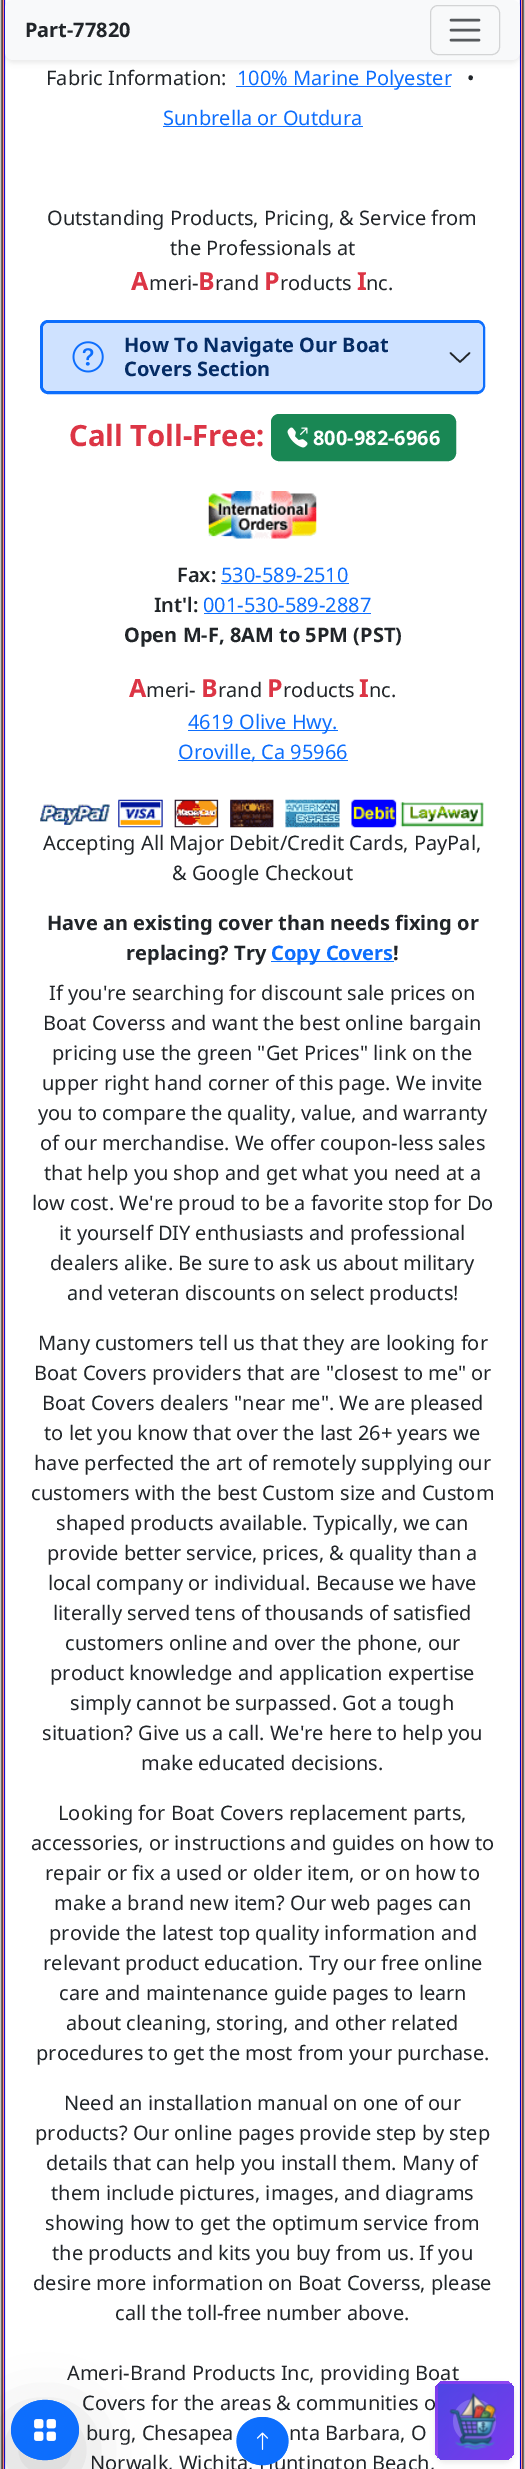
%!PS-Adobe-3.0
%%BoundingBox: 0 0 525 2469
%%LanguageLevel: 3
%%Pages: 1
%%EndComments
%%BeginProlog
/m { moveto } bind def
/l { lineto } bind def
/c { curveto } bind def
/h { closepath } bind def
/f { fill } bind def
/S { stroke } bind def
/q { gsave } bind def
/Q { grestore } bind def
/w { setlinewidth } bind def
/fn { [ exch dup neg 0 0 3 -1 roll 0 0 ] selectfont } def
/tx { moveto show } def
/bx { rectfill } def
/al { dup .setfillconstantalpha .setstrokeconstantalpha } def
/rr { 5 dict begin { /r /h /w /y /x } { exch def } forall
  x r add y moveto x w add y 2 copy h add r arct x w add y h add x 1 index r arct
  x y h add x y r arct x y 2 copy exch w add exch r arct closepath end } def
/sh { 12 dict begin { /a /b /q /h /w /y /x } { exch def } forall gsave /was 0 def
  9 -2 -9 { dup b mul 4 div /e exch def 1 sub .425 mul 2.718 exch exp 1 add a .99 .min exch div /now exch def
    1 1 now sub 1 was sub div sub al /was now def
    w h .min e 2 mul add 0 gt { x e sub y e sub w e 2 mul add h e 2 mul add
      q e add b .6 mul add w h .min 2 div e add .min 0 .max rr fill } if } for grestore end } def
/im { 5 dict begin { /h /w /y /x /name } { exch def } forall
  gsave x y translate w h scale
  w h 8 [w 0 0 h 0 0] name (r) file false 3 colorimage grestore end } def
%%EndProlog
%%BeginSetup
<< /PageSize [525 2469] /PageUsesTransparency true >> setpagedevice
%%EndSetup
%%Page: 1 1
0 .pushpdf14devicefilter
0 2469 translate 1 -1 scale
4 setmiterlimit
1 setgray
0 0 525 2469 bx
(image0.raw) 0 0 525 2469 im
0 setgray
5 3 515 60 8 2.5 0.07 sh
0.973 0.976 0.98 setrgbcolor
5 0 515 60 8 rr f
/NotoSans-Bold 20 fn
0.129 0.145 0.161 setrgbcolor
(Part-77820) 25 37 tx
0.827 0.831 0.835 setrgbcolor
430.5 5.5 69 49 7.5 rr S
0.341 0.353 0.365 setrgbcolor
2.5 w
1 setlinecap
451 20 m 479 20 l 451 30 m 479 30 l 451 40 m 479 40 l S
/NotoSans-Regular 20 fn
0.129 0.145 0.161 setrgbcolor
(Fabric Information:) 46 85 tx
0.051 0.431 0.992 setrgbcolor
236 86 215 1 bx
(100% Marine Polyester) 237 85 tx
0.129 0.145 0.161 setrgbcolor
(•) 467 85 tx
0.051 0.431 0.992 setrgbcolor
(Sunbrella or Outdura) 163 125 tx
163 126 200 1 bx
0.129 0.145 0.161 setrgbcolor
(Outstanding Products, Pricing, & Service from) 47 225 tx
(the Professionals at) 170 255 tx
/NotoSans-Bold 25 fn
0.863 0.208 0.271 setrgbcolor
(A) 131 290 tx
/NotoSans-Regular 20 fn
0.129 0.145 0.161 setrgbcolor
(meri-) 149 290 tx
/NotoSans-Bold 25 fn
0.863 0.208 0.271 setrgbcolor
(B) 198 290 tx
/NotoSans-Regular 20 fn
0.129 0.145 0.161 setrgbcolor
(rand) 215 290 tx
/NotoSans-Bold 25 fn
0.863 0.208 0.271 setrgbcolor
(P) 264 290 tx
/NotoSans-Regular 20 fn
0.129 0.145 0.161 setrgbcolor
(roducts) 280 290 tx
/NotoSans-Bold 25 fn
0.863 0.208 0.271 setrgbcolor
(I) 357 290 tx
/NotoSans-Regular 20 fn
0.129 0.145 0.161 setrgbcolor
(nc.) 366 290 tx
0.051 0.431 0.992 setrgbcolor
3 w
0 setlinecap
41.5 321.5 442 71 6.5 rr S
0.812 0.886 1 setrgbcolor
43 323 440 68 6 rr f
(image1.raw) 72 341 32 32 im
/NotoSans-Bold 20 fn
0.02 0.173 0.396 setrgbcolor
(How To Navigate Our Boat) 124 352 tx
(Covers Section) 124 376 tx
0.129 0.145 0.161 setrgbcolor
1.6 w
1 setlinecap
1 setlinejoin
450.5 353 m 460 362 l 469.5 353 l S
/NotoSans-Bold 29.25 fn
0.863 0.208 0.271 setrgbcolor
(Call Toll-Free:) 69 446 tx
0.098 0.529 0.329 setrgbcolor
271.5 414.5 184 46 7.5 rr q f Q
1 w
0 setlinecap
0 setlinejoin
S
(image2.raw) 287 427 21 21 im
/NotoSans-Bold 20 fn
1 setgray
(800-982-6966) 313 445 tx
(image3.raw) 208 491 109 48 im
/NotoSans-SemiBold 20 fn
0.129 0.145 0.161 setrgbcolor
(Fax:) 177 582 tx
/NotoSans-Regular 20 fn
0.051 0.431 0.992 setrgbcolor
(530-589-2510) 221 582 tx
221 583 128 1 bx
/NotoSans-SemiBold 20 fn
0.129 0.145 0.161 setrgbcolor
(Int'l:) 154 612 tx
/NotoSans-Regular 20 fn
0.051 0.431 0.992 setrgbcolor
(001-530-589-2887) 203 612 tx
204 613 167 1 bx
/NotoSans-Bold 20 fn
0.129 0.145 0.161 setrgbcolor
(Open M-F, 8AM to 5PM \(PST\)) 124 642 tx
/NotoSans-Bold 25 fn
0.863 0.208 0.271 setrgbcolor
(A) 129 697 tx
/NotoSans-Regular 20 fn
0.129 0.145 0.161 setrgbcolor
(meri-) 146 697 tx
/NotoSans-Bold 25 fn
0.863 0.208 0.271 setrgbcolor
(B) 201 697 tx
/NotoSans-Regular 20 fn
0.129 0.145 0.161 setrgbcolor
(rand) 218 697 tx
/NotoSans-Bold 25 fn
0.863 0.208 0.271 setrgbcolor
(P) 267 697 tx
/NotoSans-Regular 20 fn
0.129 0.145 0.161 setrgbcolor
(roducts) 283 697 tx
/NotoSans-Bold 25 fn
0.863 0.208 0.271 setrgbcolor
(I) 359 697 tx
/NotoSans-Regular 20 fn
0.129 0.145 0.161 setrgbcolor
(nc.) 369 697 tx
0.051 0.431 0.992 setrgbcolor
188 730 150 1 bx
(4619 Olive Hwy.) 188 729 tx
178 760 170 1 bx
(Oroville, Ca 95966) 178 759 tx
(image4.raw) 40 799 444 29 im
0.129 0.145 0.161 setrgbcolor
(Accepting All Major Debit/Credit Cards, PayPal,) 43 850 tx
(& Google Checkout) 172 880 tx
/NotoSans-Bold 20 fn
(Have an existing cover than needs fixing or) 47 930 tx
(replacing? Try) 126 960 tx
0.051 0.431 0.992 setrgbcolor
271 961 123 1 bx
(Copy Covers) 271 960 tx
0.129 0.145 0.161 setrgbcolor
(!) 393 960 tx
/NotoSans-Regular 20 fn
(If you're searching for discount sale prices on) 49 1000 tx
(Boat Coverss and want the best online bargain) 43 1030 tx
(pricing use the green "Get Prices" link on the) 52 1060 tx
(upper right hand corner of this page. We invite) 42 1090 tx
(you to compare the quality, value, and warranty) 38 1120 tx
(of our merchandise. We offer coupon-less sales) 40 1150 tx
(that help you shop and get what you need at a) 44 1180 tx
(low cost. We're proud to be a favorite stop for Do) 32 1210 tx
(it yourself DIY enthusiasts and professional) 59 1240 tx
(dealers alike. Be sure to ask us about military) 50 1270 tx
(and veteran discounts on select products!) 67 1300 tx
(Many customers tell us that they are looking for) 38 1350 tx
(Boat Covers providers that are "closest to me" or) 34 1380 tx
(Boat Covers dealers "near me". We are pleased) 42 1410 tx
(to let you know that over the last 26+ years we) 44 1440 tx
(have perfected the art of remotely supplying our) 34 1470 tx
(customers with the best Custom size and Custom) 31 1500 tx
(shaped products available. Typically, we can) 56 1530 tx
(provide better service, prices, & quality than a) 47 1560 tx
(local company or individual. Because we have) 48 1590 tx
(literally served tens of thousands of satisfied) 53 1620 tx
(customers online and over the phone, our) 65 1650 tx
(product knowledge and application expertise) 50 1680 tx
(simply cannot be surpassed. Got a tough) 70 1710 tx
(situation? Give us a call. We're here to help you) 42 1740 tx
(make educated decisions.) 141 1770 tx
(Looking for Boat Covers replacement parts,) 58 1820 tx
(accessories, or instructions and guides on how to) 31 1850 tx
(repair or fix a used or older item, or on how to) 45 1880 tx
(make a brand new item? Our web pages can) 54 1910 tx
(provide the latest top quality information and) 49 1940 tx
(relevant product education. Try our free online) 43 1970 tx
(care and maintenance guide pages to learn) 59 2000 tx
(about cleaning, storing, and other related) 66 2030 tx
(procedures to get the most from your purchase.) 36 2060 tx
(Need an installation manual on one of our) 64 2110 tx
(products? Our online pages provide step by step) 35 2140 tx
(details that can help you install them. Many of) 46 2170 tx
(them include pictures, images, and diagrams) 51 2200 tx
(showing how to get the optimum service from) 45 2230 tx
(the products and kits you buy from us. If you) 52 2260 tx
(desire more information on Boat Coverss, please) 33 2290 tx
(call the toll-free number above.) 115 2320 tx
(Ameri-Brand Products Inc, providing Boat) 67 2380 tx
(Covers for the areas & communities o) 82 2410 tx
(burg, Chesapea) 86 2440 tx
(nta Barbara, O) 289 2440 tx
(Norwalk, Wichita, Huntington Beach,) 90 2470 tx
0 setgray
11 2420 68 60 30 30 0.18 sh
0.051 0.431 0.992 setrgbcolor
45 2400 m 64 2400 79 2413.5 79 2430 c 79 2446.5 64 2460 45 2460 c 26 2460 11 2446.5 11 2430 c 11 2413.5 26 2400 45 2400 c h f
1.2 w
45 2400.5 m 63.5 2400.5 78 2414 78 2430 c 78 2446 63.5 2459.5 45 2459.5 c 26.5 2459.5 12 2446 12 2430 c 12 2414 26.5 2400.5 45 2400.5 c h S
(image5.raw) 34 2419 22 22 im
262.5 2417 m 277 2417 288.5 2427.5 288.5 2441 c 288.5 2454.5 277 2465 262.5 2465 c 248 2465 236.5 2454.5 236.5 2441 c 236.5 2427.5 248 2417 262.5 2417 c h f
262.5 2418 m 296 2418 296 2464.5 262.5 2464.5 c 229 2464.5 229 2418 262.5 2418 c h S
(image6.raw) 256 2432 13 18 im
q
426 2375 m 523 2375 l 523 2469 l 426 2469 l h 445 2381 m 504 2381 l 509.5 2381 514 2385.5 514 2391 c 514 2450 l 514 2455.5 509.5 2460 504 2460 c 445 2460 l 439.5 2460 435 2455.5 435 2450 c 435 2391 l 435 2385.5 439.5 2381 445 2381 c h eoclip newpath
0 setgray
435 2384 79 79 10 2.5 0.07 sh
Q
q
435 2381 79 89 10 rr clip newpath
435 2381 79 79 10 rr clip newpath
q 438 2381 m 514 2381 l 514 2384 l 438 2384 l h clip newpath
<< /ShadingType 2 /ColorSpace /DeviceRGB /Coords [438 2236 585 2384] /Extend [true true] /Function << /FunctionType 3 /Domain [0 1] /Functions [<< /FunctionType 2 /Domain [0 1] /C0 [0.31 0.275 0.898] /C1 [0.486 0.227 0.929] /N 1 >> << /FunctionType 2 /Domain [0 1] /C0 [0.486 0.227 0.929] /C1 [0.659 0.333 0.969] /N 1 >>] /Bounds [0.5] /Encode [0 1 0 1] >> >> shfill Q
q 435 2384 m 438 2384 l 438 2460 l 435 2460 l h clip newpath
<< /ShadingType 2 /ColorSpace /DeviceRGB /Coords [290 2384 438 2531] /Extend [true true] /Function << /FunctionType 3 /Domain [0 1] /Functions [<< /FunctionType 2 /Domain [0 1] /C0 [0.31 0.275 0.898] /C1 [0.486 0.227 0.929] /N 1 >> << /FunctionType 2 /Domain [0 1] /C0 [0.486 0.227 0.929] /C1 [0.659 0.333 0.969] /N 1 >>] /Bounds [0.5] /Encode [0 1 0 1] >> >> shfill Q
q 438 2384 m 514 2384 l 514 2450 l 514 2455.5 509.5 2460 504 2460 c 438 2460 l h clip newpath
<< /ShadingType 2 /ColorSpace /DeviceRGB /Coords [438 2384 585 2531] /Extend [true true] /Function << /FunctionType 3 /Domain [0 1] /Functions [<< /FunctionType 2 /Domain [0 1] /C0 [0.31 0.275 0.898] /C1 [0.486 0.227 0.929] /N 1 >> << /FunctionType 2 /Domain [0 1] /C0 [0.486 0.227 0.929] /C1 [0.659 0.333 0.969] /N 1 >>] /Bounds [0.5] /Encode [0 1 0 1] >> >> shfill Q
Q
0.2 al
1 setgray
453 2399 43 44 21.5 rr f
1 al
(image7.raw) 449 2392 48 58 im
.poppdf14devicefilter showpage
%%EOF
